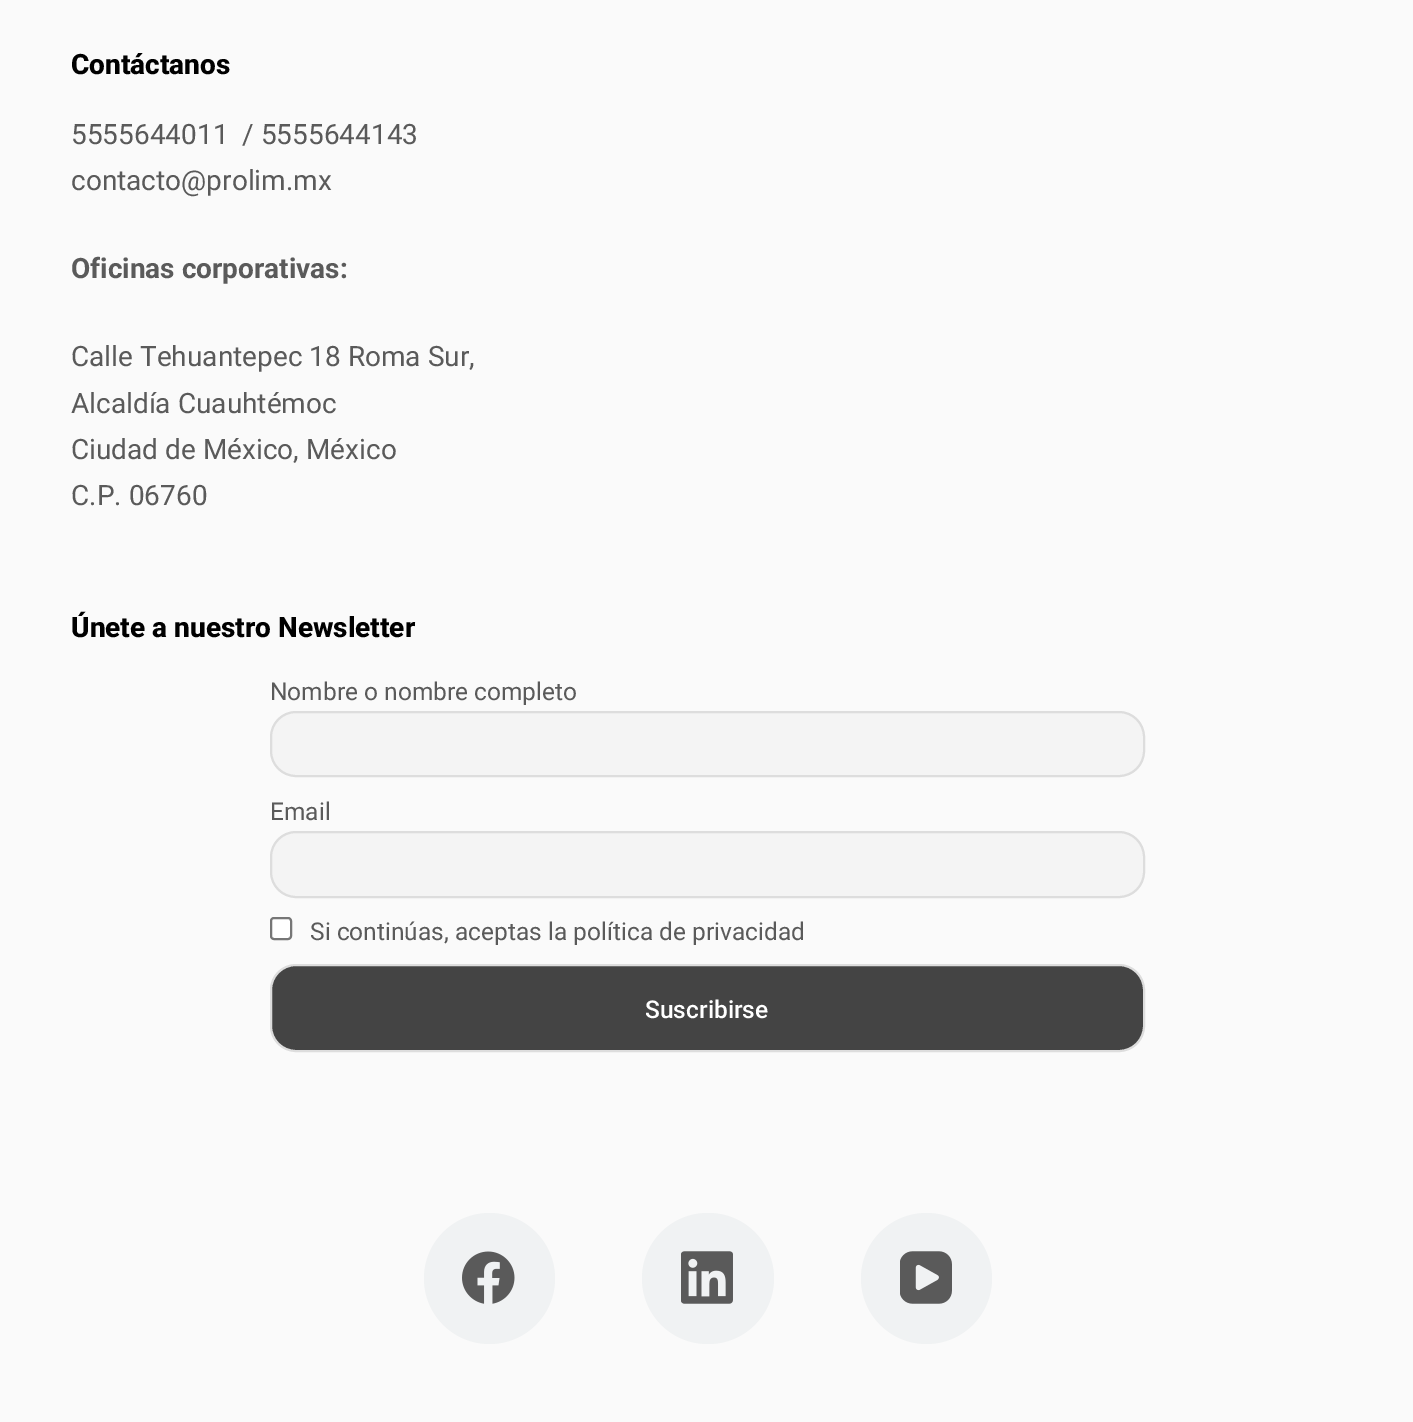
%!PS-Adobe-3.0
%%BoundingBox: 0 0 1413 1422
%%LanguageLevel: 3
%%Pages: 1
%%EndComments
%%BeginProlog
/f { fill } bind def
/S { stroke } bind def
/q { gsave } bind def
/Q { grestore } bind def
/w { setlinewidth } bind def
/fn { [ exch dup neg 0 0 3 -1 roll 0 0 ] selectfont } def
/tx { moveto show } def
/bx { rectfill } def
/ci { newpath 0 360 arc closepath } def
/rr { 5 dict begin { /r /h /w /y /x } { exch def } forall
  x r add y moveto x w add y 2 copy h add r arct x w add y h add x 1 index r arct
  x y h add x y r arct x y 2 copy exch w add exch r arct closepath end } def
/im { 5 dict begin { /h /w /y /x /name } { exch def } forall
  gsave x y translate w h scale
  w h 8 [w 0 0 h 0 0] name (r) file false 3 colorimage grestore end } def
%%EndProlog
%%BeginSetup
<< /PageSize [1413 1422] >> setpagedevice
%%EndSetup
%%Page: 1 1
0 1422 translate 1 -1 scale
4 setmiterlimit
0.98 setgray
0 0 1413 1422 bx
/Roboto-ExtraBold 28 fn
0 setgray
(Contáctanos) 71 74 tx
/Roboto-Regular 28 fn
0.353 setgray
(5555644011  / 5555644143) 71 144 tx
(contacto@prolim.mx) 71 190 tx
/Roboto-Bold 28 fn
(Oficinas corporativas:) 71 278 tx
/Roboto-Regular 28 fn
(Calle Tehuantepec 18 Roma Sur,) 71 366 tx
(Alcaldía Cuauhtémoc) 71 413 tx
(Ciudad de México, México) 71 459 tx
(C.P. 06760) 71 505 tx
/Roboto-ExtraBold 28 fn
0 setgray
(Únete a nuestro Newsletter) 71 637 tx
/Roboto-Regular 24.5 fn
0.353 setgray
(Nombre o nombre completo) 270 700 tx
0.957 setgray
271 712 873 64 25 rr q f Q
0.867 setgray
2 w
S
0.353 setgray
(Email) 270 820 tx
0.957 setgray
271 832 873 65 25 rr q f Q
0.867 setgray
S
1 setgray
271 918 20 21 3 rr q f Q
0.463 setgray
S
0.353 setgray
(Si continúas, aceptas la política de privacidad) 310 940 tx
0.267 setgray
271 965 873 86 25 rr q f Q
0.867 setgray
S
/Roboto-Medium 24.5 fn
1 setgray
(Suscribirse) 645 1018 tx
0.941 0.949 0.953 setrgbcolor
489.5 1278.5 65.5 ci f
(image0.raw) 462 1251 53 53 im
642 1213 132 131 65.5 rr f
(image1.raw) 681 1251 52 53 im
926.5 1278.5 65.5 ci f
(image2.raw) 900 1251 52 53 im
showpage
%%EOF
